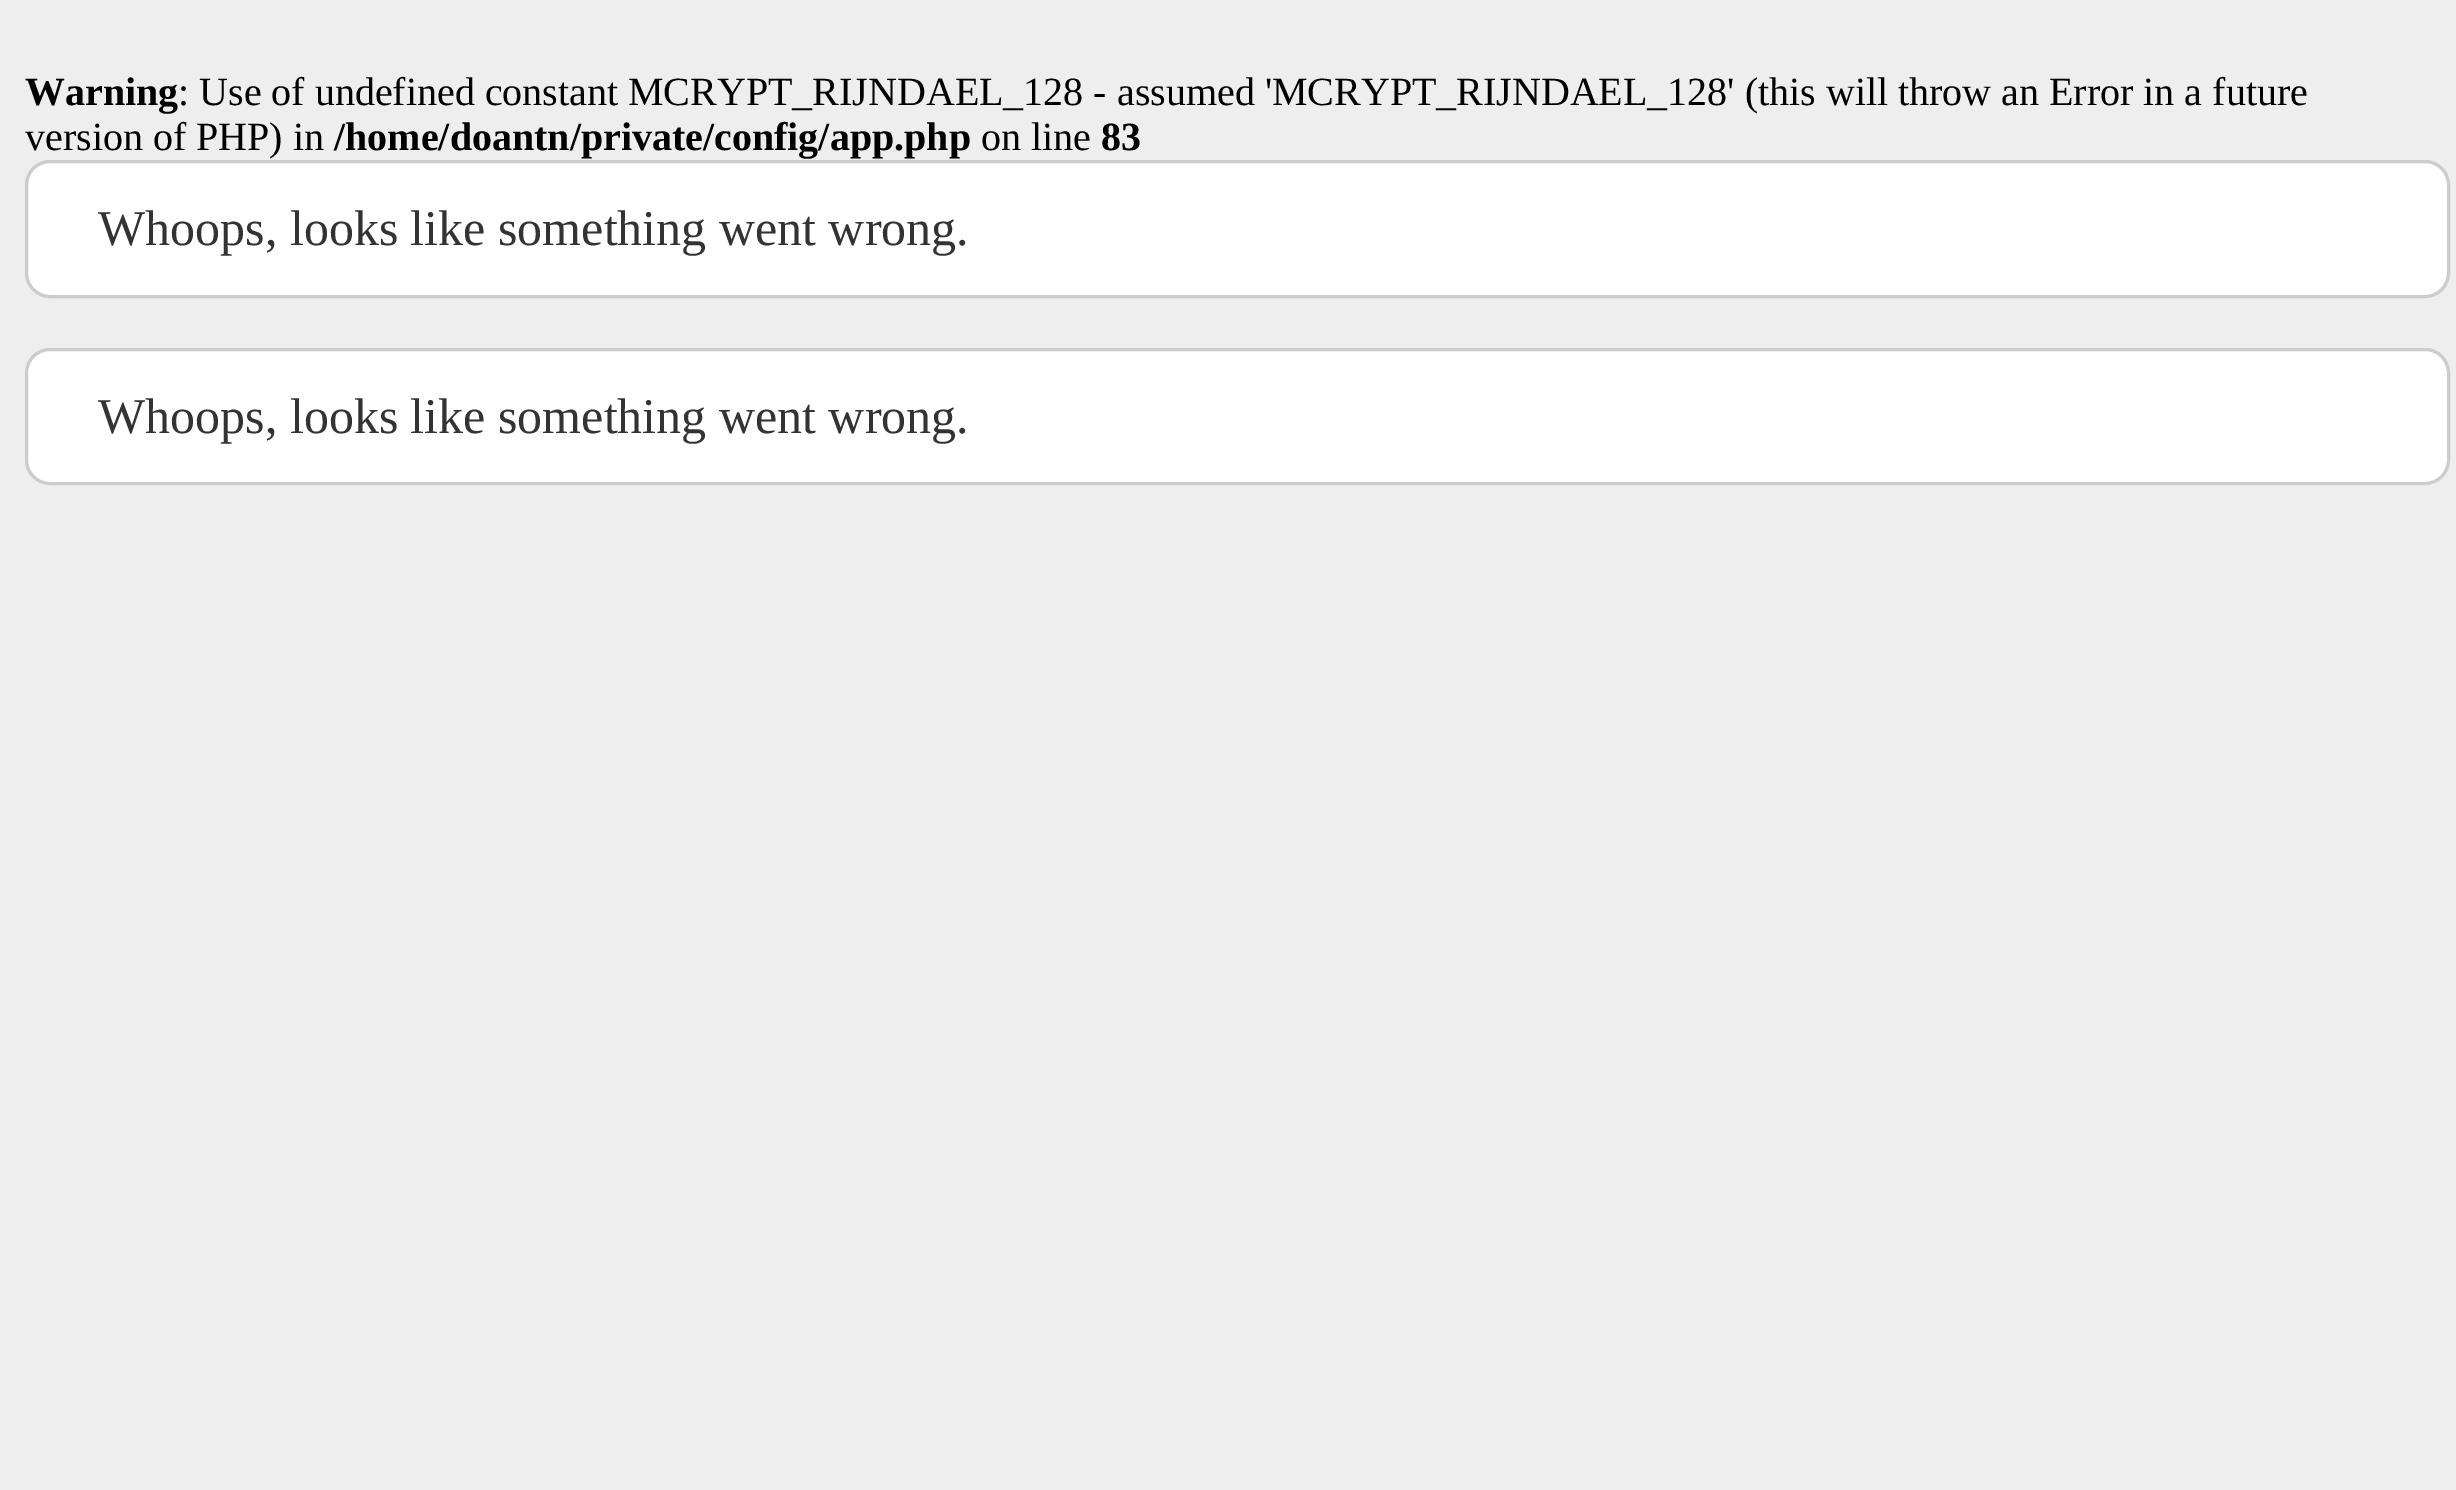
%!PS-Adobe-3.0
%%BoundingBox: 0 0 2456 1490
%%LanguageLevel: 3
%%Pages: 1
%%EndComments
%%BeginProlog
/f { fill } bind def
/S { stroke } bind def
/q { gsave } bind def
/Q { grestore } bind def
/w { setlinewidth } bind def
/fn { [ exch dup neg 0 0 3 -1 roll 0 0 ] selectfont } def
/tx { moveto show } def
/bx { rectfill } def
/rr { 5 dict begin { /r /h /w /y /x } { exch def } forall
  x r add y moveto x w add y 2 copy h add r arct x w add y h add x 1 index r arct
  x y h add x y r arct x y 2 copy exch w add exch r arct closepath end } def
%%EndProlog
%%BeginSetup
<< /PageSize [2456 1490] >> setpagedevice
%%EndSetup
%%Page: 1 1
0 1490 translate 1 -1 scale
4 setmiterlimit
0.933 setgray
0 0 2456 1490 bx
/LiberationSerif-Bold 40 fn
0 setgray
(Warning) 25 105 tx
/LiberationSerif-Regular 40 fn
(: Use of undefined constant MCRYPT_RIJNDAEL_128 - assumed 'MCRYPT_RIJNDAEL_128' \(this will throw an Error in a future) 178 105 tx
(version of PHP\) in) 25 150 tx
/LiberationSerif-Bold 40 fn
(/home/doantn/private/config/app.php) 334 150 tx
/LiberationSerif-Regular 40 fn
(on line) 981 150 tx
/LiberationSerif-Bold 40 fn
(83) 1101 150 tx
1 setgray
26.5 161.5 2422 135 23.5 rr q f Q
0.8 setgray
3 w
S
/LiberationSerif-Regular 50 fn
0.2 setgray
(Whoops, looks like something went wrong.) 98 245 tx
1 setgray
26.5 349.5 2422 134 23.5 rr q f Q
0.8 setgray
S
0.2 setgray
(Whoops, looks like something went wrong.) 98 433 tx
showpage
%%EOF
